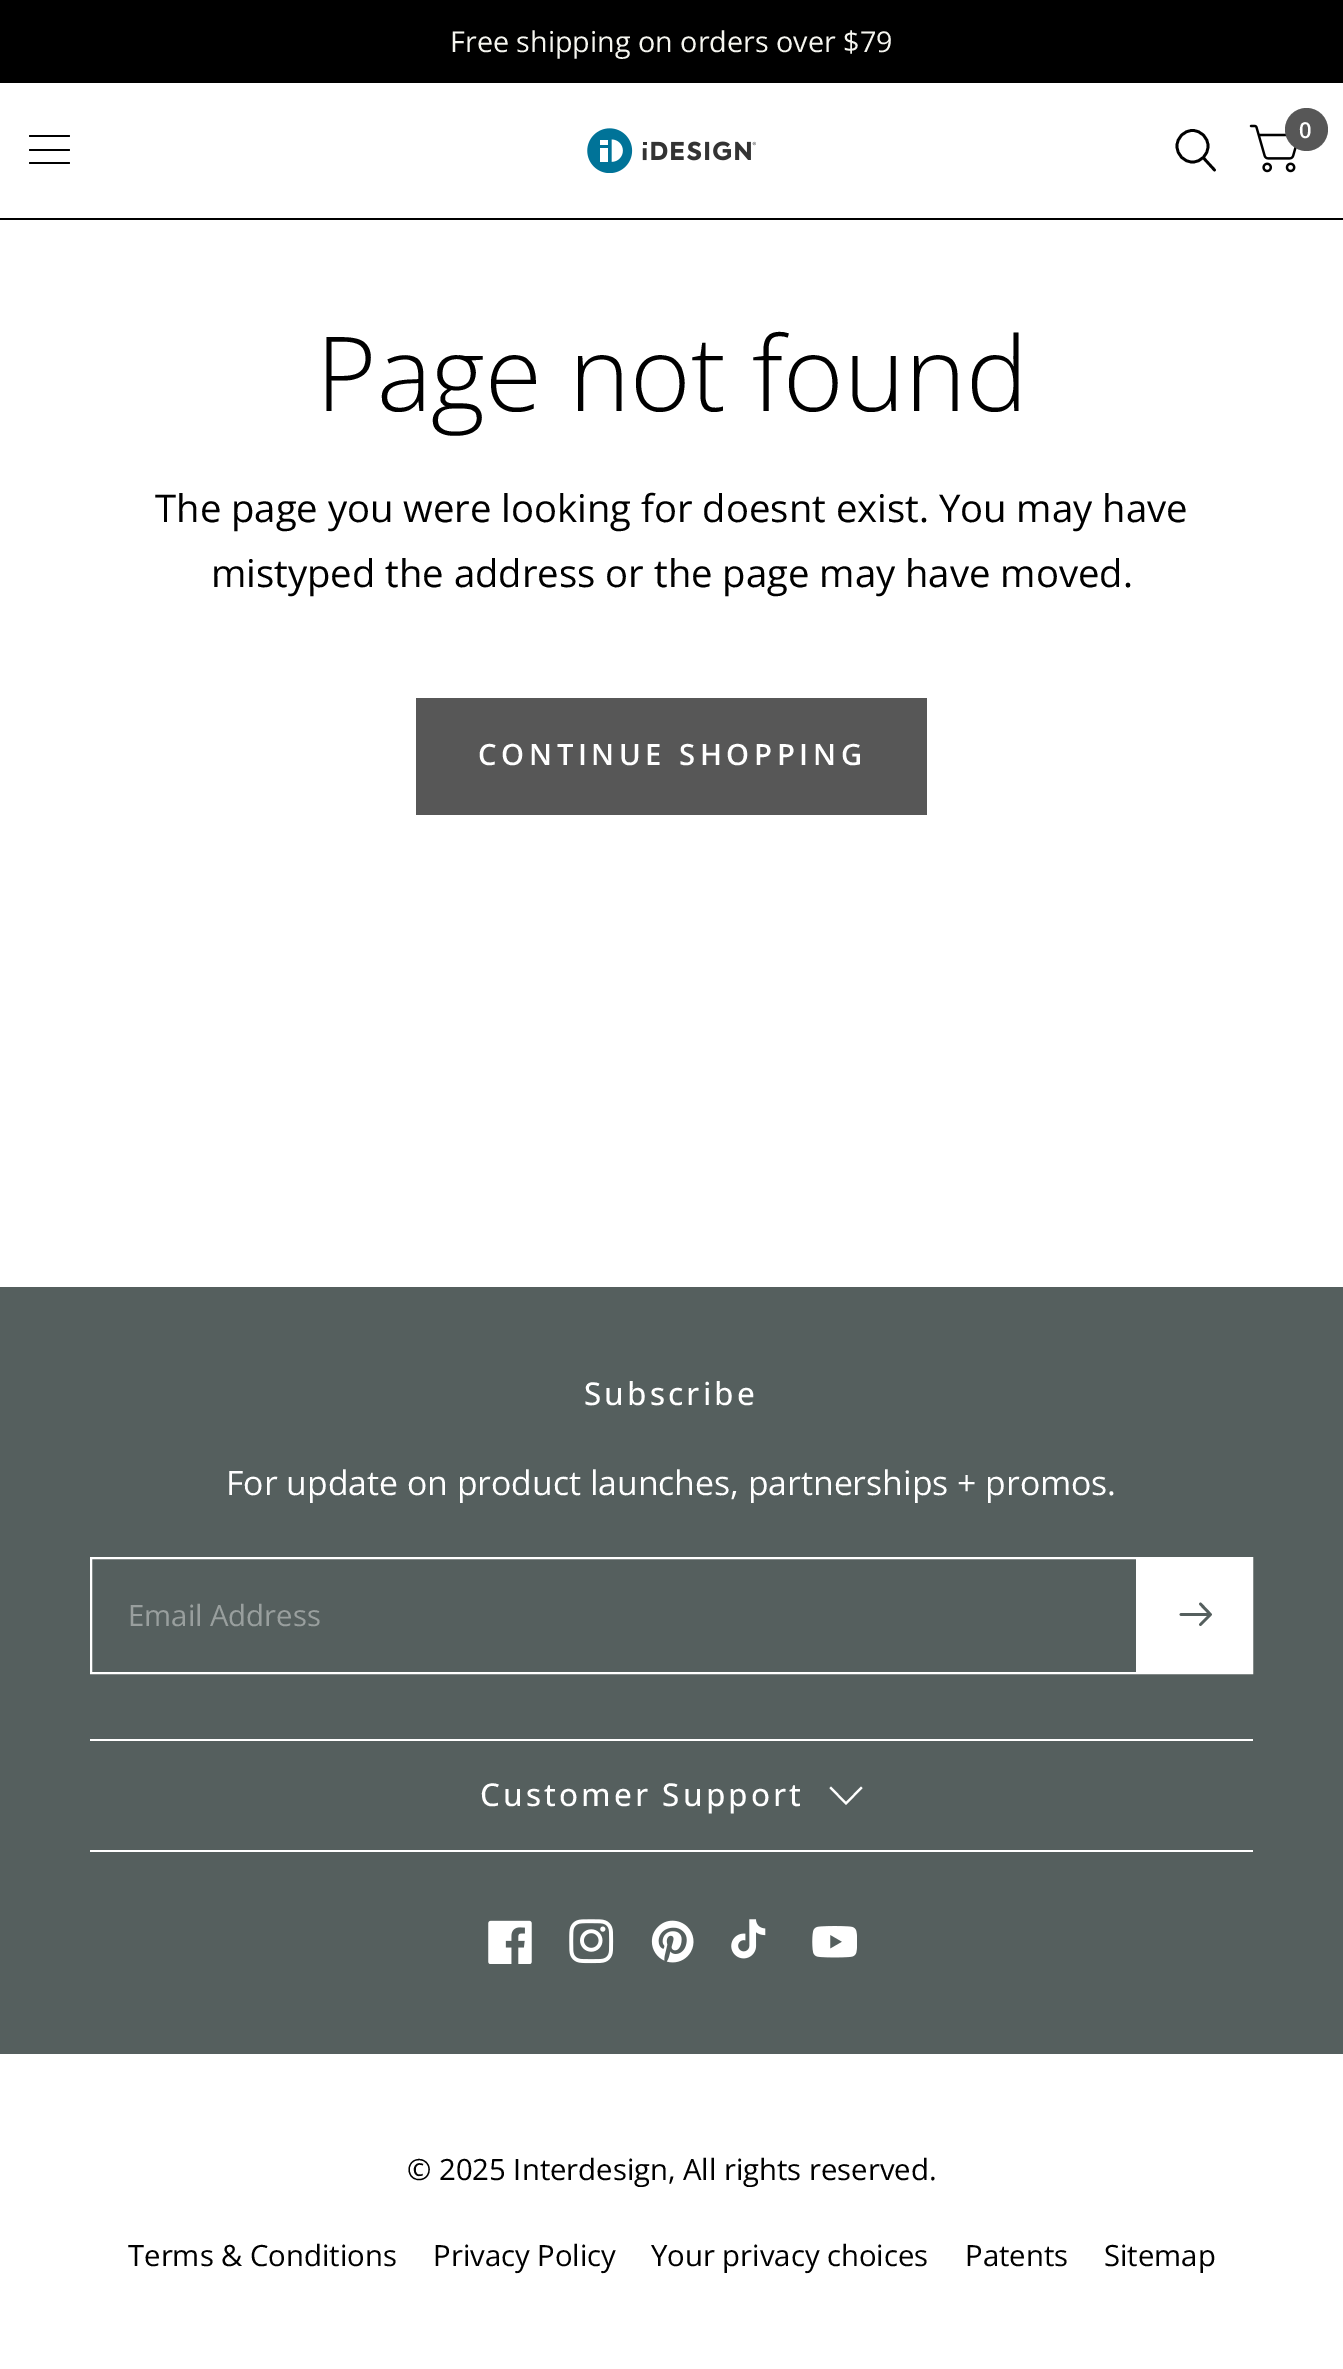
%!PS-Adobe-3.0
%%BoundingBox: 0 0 1343 2369
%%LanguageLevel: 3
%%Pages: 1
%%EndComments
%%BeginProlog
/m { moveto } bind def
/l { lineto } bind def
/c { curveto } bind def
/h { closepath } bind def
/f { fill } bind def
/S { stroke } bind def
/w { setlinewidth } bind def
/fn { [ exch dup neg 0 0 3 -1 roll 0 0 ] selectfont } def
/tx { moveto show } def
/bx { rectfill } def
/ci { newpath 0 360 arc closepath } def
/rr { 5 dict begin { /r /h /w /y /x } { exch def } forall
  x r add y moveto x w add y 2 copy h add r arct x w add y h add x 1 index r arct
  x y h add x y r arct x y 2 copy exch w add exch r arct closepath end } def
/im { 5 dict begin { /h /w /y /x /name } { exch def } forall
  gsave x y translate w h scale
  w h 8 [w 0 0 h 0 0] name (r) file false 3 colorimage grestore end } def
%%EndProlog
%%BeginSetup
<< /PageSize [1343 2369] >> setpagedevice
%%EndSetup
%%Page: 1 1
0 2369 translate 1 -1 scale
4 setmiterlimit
1 setgray
0 0 1343 2369 bx
0 setgray
0 0 1343 83 bx
/OpenSans-Regular 28.75 fn
0.965 0.965 0.941 setrgbcolor
(Free shipping on orders over $79) 450 52 tx
0 setgray
0 218 1343 2 bx
29 135 41 2 1 rr f
29 149 41 2 1 rr f
29 162 41 2 1 rr f
(image0.raw) 587 128 169 45 im
2.7 w
1 setlinecap
1 setlinejoin
1204 158.5 m 1214.5 170 l 1208 146 m 1208 155 1201 162 1192.5 162 c 1184 162 1177 155 1177 146 c 1177 137.5 1184 130.5 1192.5 130.5 c 1201 130.5 1208 137.5 1208 146 c h S
(image1.raw) 1249 124 48 49 im
0.341 setgray
1306.5 129.5 21.5 ci f
/OpenSans-SemiBold 22 fn
1 setgray
(0) 1299 138 tx
/OpenSans-Light 103.5 fn
0 setgray
(Page not found) 316 411 tx
/OpenSans-Regular 38.25 fn
(The page you were looking for doesnt exist. You may have) 155 522 tx
(mistyped the address or the page may have moved.) 211 587 tx
0.341 setgray
416 698 511 117 bx
/OpenSans-SemiBold 29.25 fn
1 setgray
478 765 m 4.7 0 (CONTINUE SHOPPING) ashow
0.333 0.373 0.369 setrgbcolor
0 1287 1343 767 bx
/OpenSans-Medium 31.5 fn
1 setgray
584 1405 m 3.1 0 (Subscribe) ashow
/OpenSans-Regular 33.75 fn
(For update on product launches, partnerships + promos.) 226 1495 tx
2 w
0 setlinecap
0 setlinejoin
91 1558 1161 115 rectstroke
/OpenSans-Regular 29.25 fn
0.6 0.624 0.62 setrgbcolor
(Email Address) 128 1626 tx
1 setgray
1136 1559 115 113 bx
0.333 0.373 0.369 setrgbcolor
2.7 w
1 setlinecap
1 setlinejoin
1181 1614.5 m 1208 1614.5 l 1200.5 1604 m 1210.5 1614.5 l 1200.5 1624.5 l S
1 setgray
90 1739 1163 2 bx
90 1850 1163 2 bx
/OpenSans-Medium 31.5 fn
480 1806 m 3.1 0 (Customer Support) ashow
862.5 1788 m 846 1805 l 829.5 1788 l 831 1786.5 l 846 1802 l 861 1786.5 l h f
(image2.raw) 488 1920 44 44 im
(image3.raw) 569 1919 45 45 im
(image4.raw) 651 1920 43 43 im
(image5.raw) 731 1919 35 40 im
(image6.raw) 812 1926 45 32 im
/OpenSans-Regular 29.25 fn
0 setgray
(© 2025 Interdesign, All rights reserved.) 407 2180 tx
(Terms & Conditions) 128 2266 tx
(Privacy Policy) 433 2266 tx
(Your privacy choices) 651 2266 tx
(Patents) 965 2266 tx
(Sitemap) 1104 2266 tx
showpage
%%EOF
